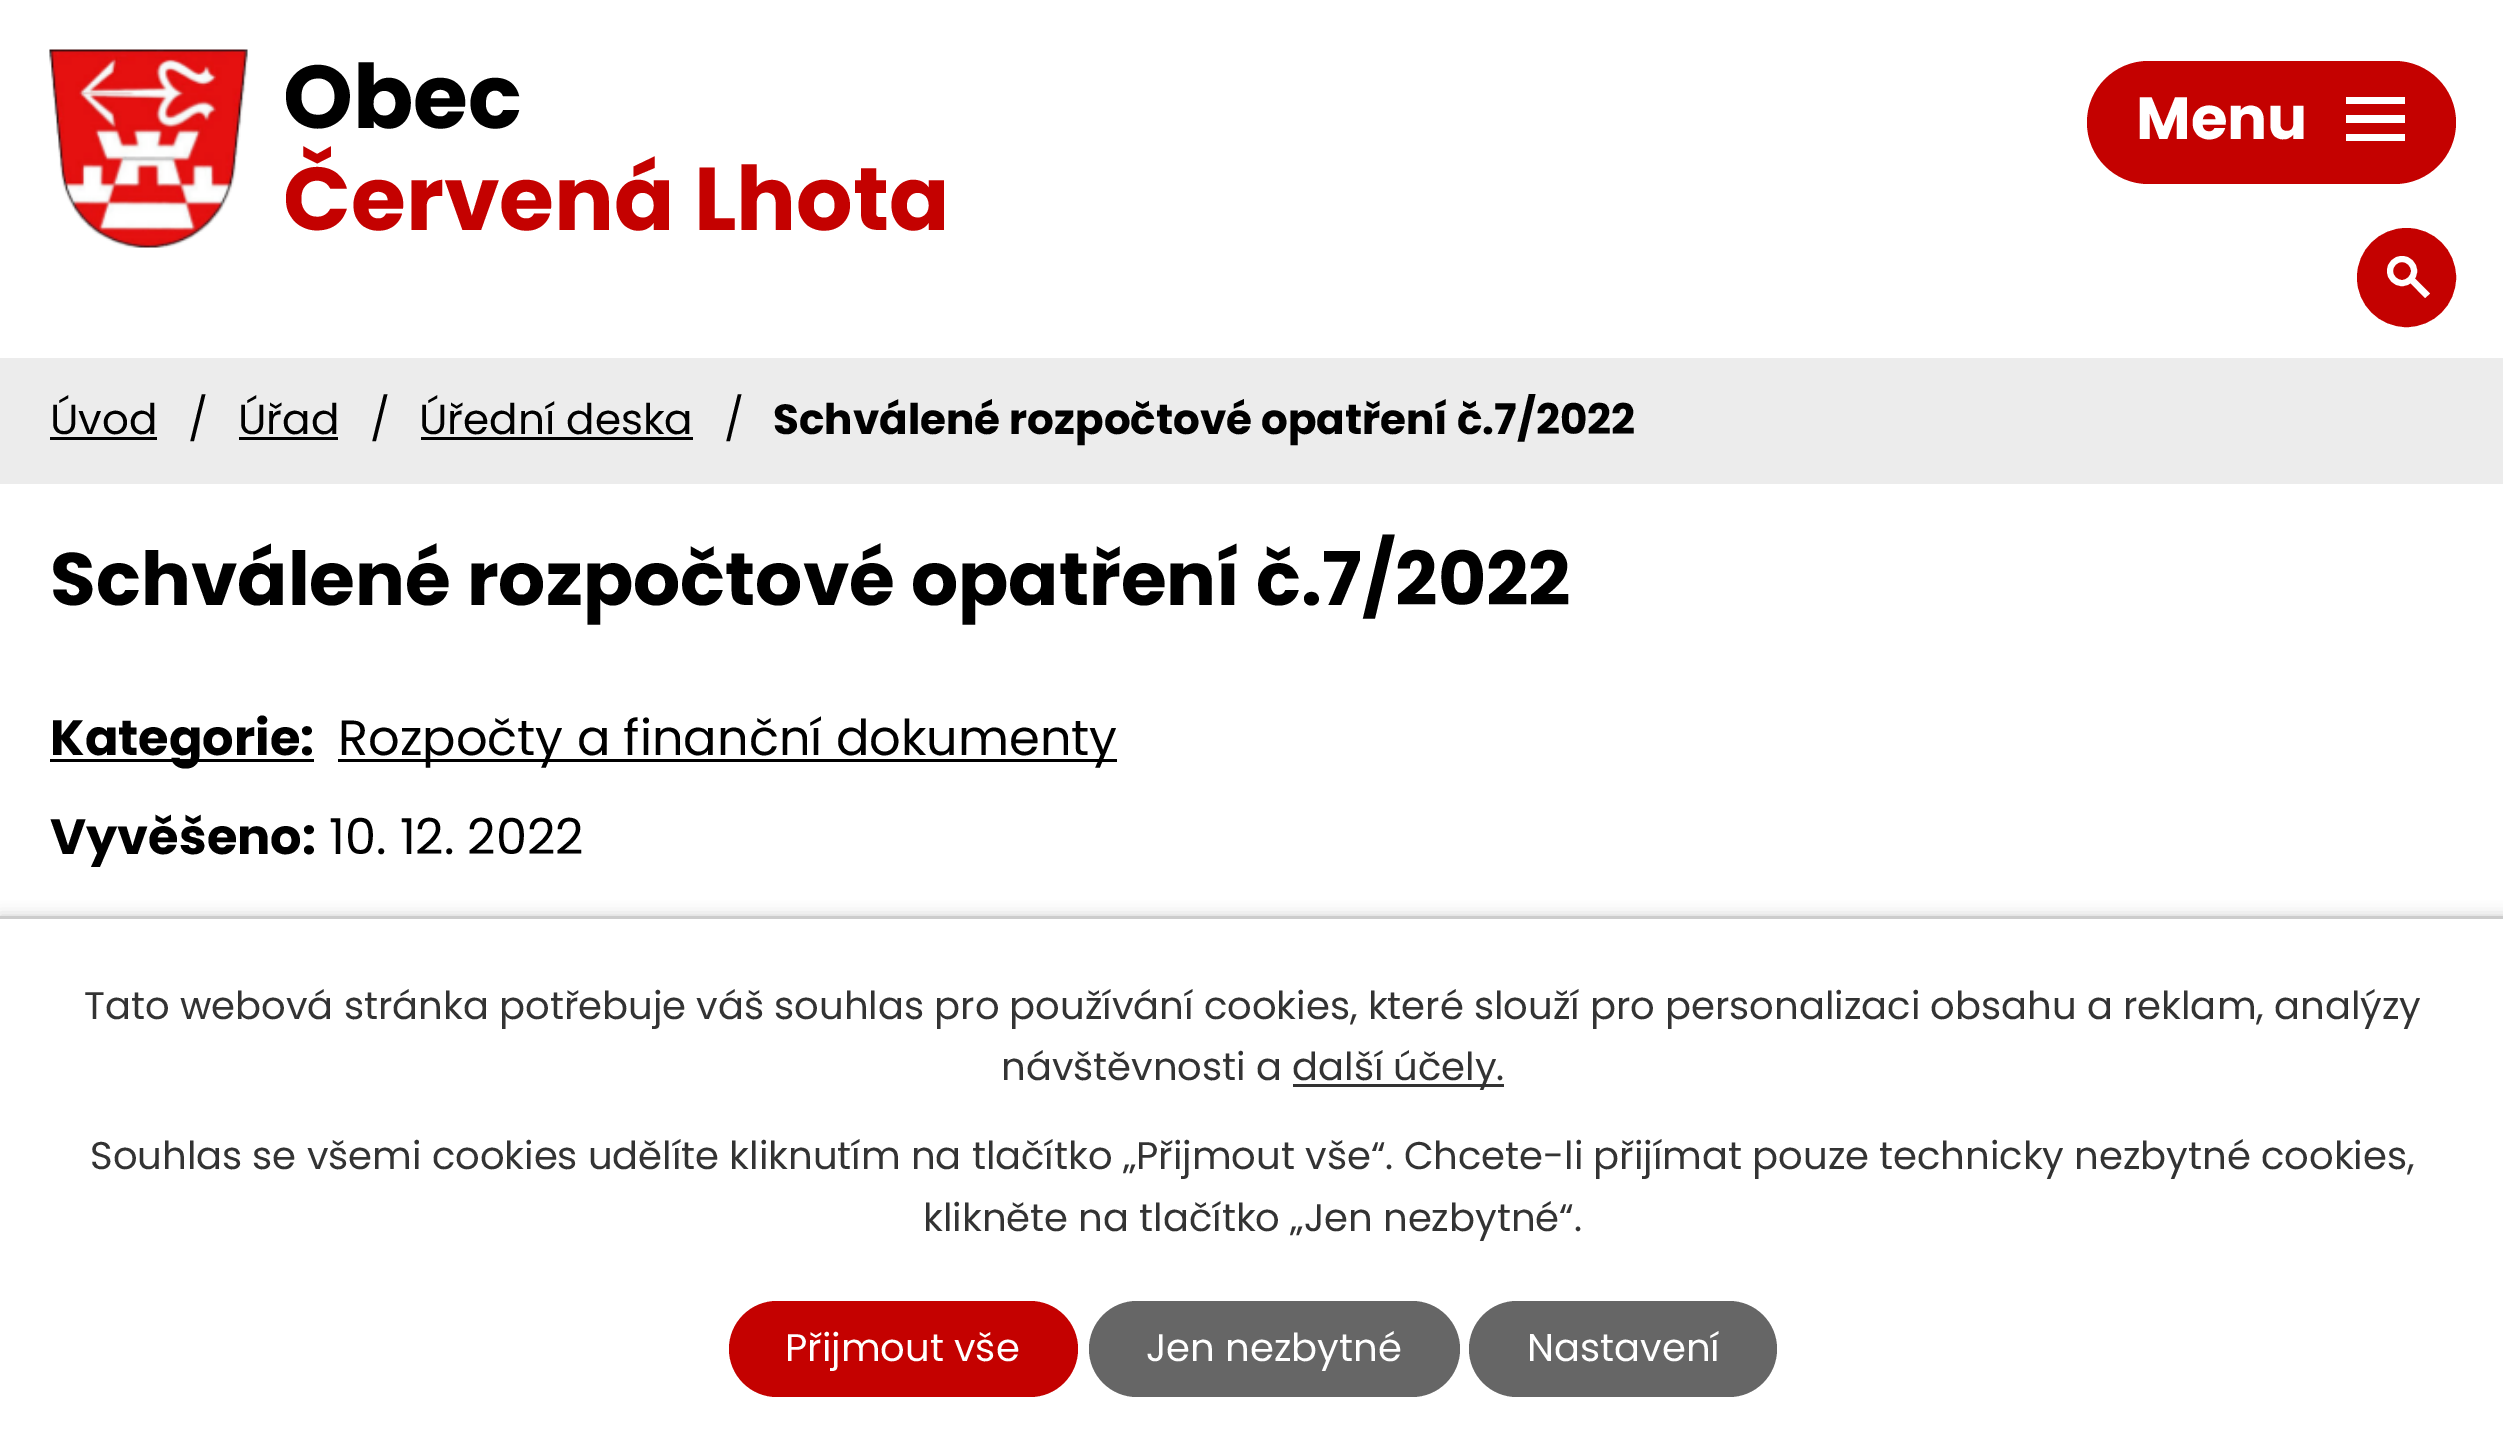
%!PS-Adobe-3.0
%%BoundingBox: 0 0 2503 1449
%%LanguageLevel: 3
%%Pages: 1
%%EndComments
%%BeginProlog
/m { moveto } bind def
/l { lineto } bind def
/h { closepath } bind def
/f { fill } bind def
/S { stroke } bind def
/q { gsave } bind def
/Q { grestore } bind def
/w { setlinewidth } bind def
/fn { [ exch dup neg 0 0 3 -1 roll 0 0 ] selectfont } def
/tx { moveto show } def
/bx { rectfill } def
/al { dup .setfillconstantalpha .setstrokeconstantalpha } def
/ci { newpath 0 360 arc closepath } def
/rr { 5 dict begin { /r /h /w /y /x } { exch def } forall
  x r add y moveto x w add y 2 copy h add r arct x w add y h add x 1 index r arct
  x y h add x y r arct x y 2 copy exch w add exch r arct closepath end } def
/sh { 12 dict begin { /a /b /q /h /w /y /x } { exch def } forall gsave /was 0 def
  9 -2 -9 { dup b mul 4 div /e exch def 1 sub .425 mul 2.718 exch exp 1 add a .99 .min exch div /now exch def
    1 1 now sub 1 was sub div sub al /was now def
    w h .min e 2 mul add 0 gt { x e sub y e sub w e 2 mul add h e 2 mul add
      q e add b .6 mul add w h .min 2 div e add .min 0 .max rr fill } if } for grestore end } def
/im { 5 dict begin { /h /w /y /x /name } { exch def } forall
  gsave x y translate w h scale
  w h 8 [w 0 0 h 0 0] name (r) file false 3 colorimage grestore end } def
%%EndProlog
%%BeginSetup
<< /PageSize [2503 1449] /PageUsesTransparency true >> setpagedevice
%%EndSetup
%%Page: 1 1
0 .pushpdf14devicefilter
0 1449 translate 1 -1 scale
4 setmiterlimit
1 setgray
0 0 2503 1449 bx
(image0.raw) 49 49 199 199 im
/Poppins-Bold 89 fn
0 setgray
(Obec) 283 128 tx
0.769 0.004 0 setrgbcolor
(Červená Lhota) 283 230 tx
2406.5 277.5 48 ci q f Q
3 w
S
1 setgray
6 w
2402 271 12 ci S
2414 277.5 m 2430 293.5 l 2425 298 l 2409.5 282 l h f
0.769 0.004 0 setrgbcolor
2087 61 369 123 61.5 rr f
/Poppins-Bold 59.5 fn
1 setgray
(Menu) 2136 139 tx
2346 141 m 2346 134 l 2405 134 l 2405 141 l h 2346 97 m 2405 97 l 2405 104 l 2346 104 l h 2346 123 m 2346 115 l 2405 115 l 2405 123 l h f
0.925 setgray
0 358 2503 126 bx
/Poppins-Regular 42.1 fn
0 setgray
(Úvod) 50 434 tx
50 437 107 3 bx
(/) 188 434 tx
(Úřad) 238 434 tx
239 437 99 3 bx
(/) 370 434 tx
(Úřední deska) 419 434 tx
421 437 272 3 bx
(/) 724 434 tx
/Poppins-Bold 42.1 fn
(Schválené rozpočtové opatření č.7/2022) 773 434 tx
/Poppins-Bold 74.25 fn
(Schválené rozpočtové opatření č.7/2022) 50 605 tx
50 759 264 3 bx
/Poppins-Bold 49.5 fn
(Kategorie:) 50 755 tx
338 759 779 3 bx
/Poppins-Regular 49.5 fn
(Rozpočty a finanční dokumenty) 338 755 tx
/Poppins-Bold 49.5 fn
(Vyvěšeno:) 50 854 tx
/Poppins-Regular 49.5 fn
(10. 12. 2022) 329 854 tx
0 916 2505 533 0 7 0.2 sh
1 setgray
0 919 2503 530 bx
0.8 setgray
0 916 2503 3 bx
/Poppins-Regular 38.5 fn
0.2 setgray
(Tato webová stránka potřebuje váš souhlas pro používání cookies, které slouží pro personalizaci obsahu a reklam, analýzy) 84 1019 tx
(návštěvnosti a) 1001 1080 tx
1293 1084 211 3 bx
(další účely.) 1292 1080 tx
(Souhlas se všemi cookies udělíte kliknutím na tlačítko „Přijmout vše“. Chcete-li přijímat pouze technicky nezbytné cookies,) 90 1169 tx
(klikněte na tlačítko „Jen nezbytné“.) 923 1231 tx
0.769 0.004 0 setrgbcolor
729 1301 349 96 48 rr f
1 setgray
(Přijmout vše) 785 1361 tx
0.4 setgray
1089 1301 371 96 48 rr f
1 setgray
(Jen nezbytné) 1146 1361 tx
0.4 setgray
1469 1301 308 96 48 rr f
1 setgray
(Nastavení) 1527 1361 tx
.poppdf14devicefilter showpage
%%EOF
